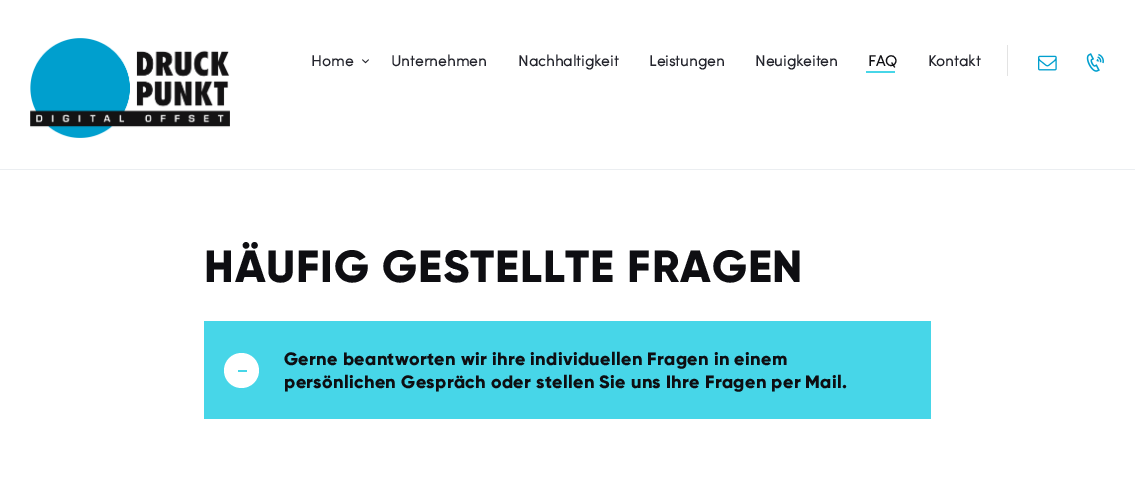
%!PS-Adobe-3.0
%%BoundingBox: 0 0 1135 491
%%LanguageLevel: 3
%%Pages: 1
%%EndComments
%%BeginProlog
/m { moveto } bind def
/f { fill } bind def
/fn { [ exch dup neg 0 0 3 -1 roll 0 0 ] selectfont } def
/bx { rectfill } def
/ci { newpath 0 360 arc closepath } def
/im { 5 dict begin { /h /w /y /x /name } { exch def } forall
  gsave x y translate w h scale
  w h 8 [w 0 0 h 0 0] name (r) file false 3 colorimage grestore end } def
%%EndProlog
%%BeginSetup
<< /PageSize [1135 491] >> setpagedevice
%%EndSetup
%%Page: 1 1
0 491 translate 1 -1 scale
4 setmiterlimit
1 setgray
0 0 1135 491 bx
0.922 0.933 0.945 setrgbcolor
0 169 1135 1 bx
(image0.raw) 30 38 200 100 im
0.89 setgray
1007 45 1 31 bx
/Sofia-Bold 15 fn
0.137 0.141 0.173 setrgbcolor
311 66 m 0.25 0 (Home) ashow
(image1.raw) 362 59 7 5 im
391 66 m 0.25 0 (Unternehmen) ashow
518 66 m 0.25 0 (Nachhaltigkeit) ashow
649 66 m 0.25 0 (Leistungen) ashow
755 66 m 0.25 0 (Neuigkeiten) ashow
0.055 0.055 0.071 setrgbcolor
868 66 m 0.25 0 (FAQ) ashow
0.137 0.141 0.173 setrgbcolor
928 66 m 0.25 0 (Kontakt) ashow
0.278 0.839 0.91 setrgbcolor
866 71 29 2 bx
(image2.raw) 1038 55 19 16 im
(image3.raw) 1086 53 18 19 im
/Gilroy-ExtraBold 45 fn
0.055 0.055 0.071 setrgbcolor
204 282 m 0.9 0 (HÄUFIG GESTELLTE FRAGEN) ashow
0.278 0.839 0.91 setrgbcolor
204 321 727 98 bx
1 setgray
241.5 370.5 17.5 ci f
0.278 0.839 0.91 setrgbcolor
238 370 9 2 bx
/Gilroy-ExtraBold 18 fn
0.055 0.055 0.071 setrgbcolor
284 365 m 0.35 0 (Gerne beantworten wir ihre individuellen Fragen in einem) ashow
284 388 m 0.35 0 (persönlichen Gespräch oder stellen Sie uns Ihre Fragen per Mail.) ashow
showpage
%%EOF
